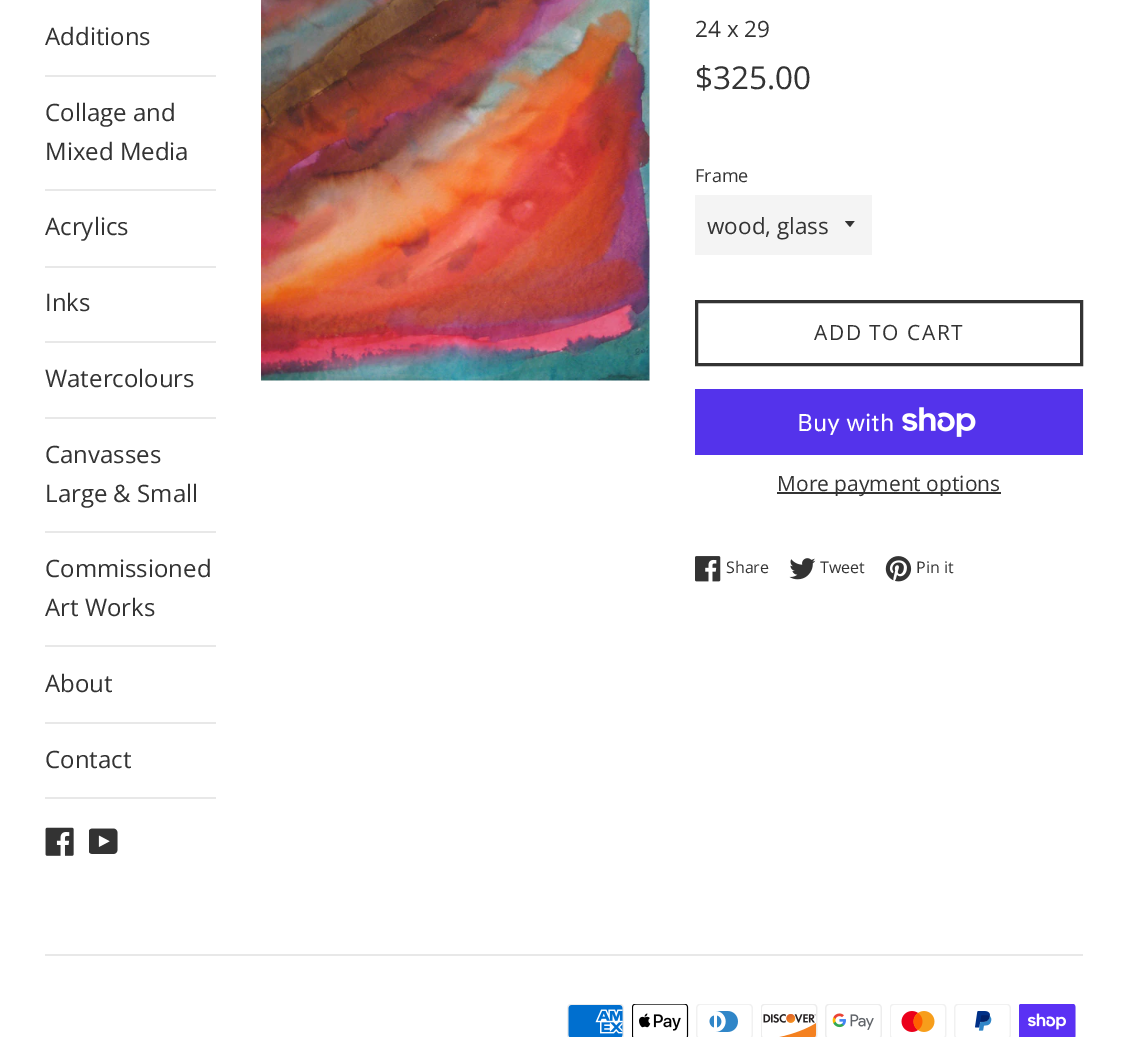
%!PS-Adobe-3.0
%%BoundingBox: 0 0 1127 1037
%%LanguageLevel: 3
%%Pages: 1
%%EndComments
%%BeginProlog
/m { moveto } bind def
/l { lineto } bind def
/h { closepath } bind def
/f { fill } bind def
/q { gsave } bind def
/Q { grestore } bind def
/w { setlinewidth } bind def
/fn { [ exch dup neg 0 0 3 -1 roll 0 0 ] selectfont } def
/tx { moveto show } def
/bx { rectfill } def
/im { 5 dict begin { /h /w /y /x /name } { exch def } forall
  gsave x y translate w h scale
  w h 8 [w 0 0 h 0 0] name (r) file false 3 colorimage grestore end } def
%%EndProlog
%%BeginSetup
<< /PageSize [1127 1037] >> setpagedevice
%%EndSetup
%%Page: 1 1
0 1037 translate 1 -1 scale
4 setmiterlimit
1 setgray
0 0 1127 1037 bx
0.91 setgray
45 75 171 2 bx
/OpenSans-Regular 24 fn
0.2 setgray
(Additions) 45 45 tx
0.91 setgray
45 189 171 2 bx
0.2 setgray
(Collage and) 45 121 tx
(Mixed Media) 45 160 tx
0.91 setgray
45 266 171 2 bx
0.2 setgray
(Acrylics) 45 235 tx
0.91 setgray
45 341 171 2 bx
0.2 setgray
(Inks) 45 311 tx
0.91 setgray
45 417 171 2 bx
0.2 setgray
(Watercolours) 45 387 tx
0.91 setgray
45 531 171 2 bx
0.2 setgray
(Canvasses) 45 463 tx
(Large & Small) 45 502 tx
0.91 setgray
45 645 171 2 bx
0.2 setgray
(Commissioned) 45 577 tx
(Art Works) 45 616 tx
0.91 setgray
45 722 171 2 bx
0.2 setgray
(About) 45 692 tx
0.91 setgray
45 797 171 2 bx
0.2 setgray
(Contact) 45 768 tx
(image0.raw) 45 827 29 29 im
(image1.raw) 89 828 29 26 im
(image2.raw) 261 0 389 381 im
/OpenSans-Regular 22.5 fn
(24 x 29) 695 37 tx
/OpenSans-Regular 31.5 fn
($325.00) 695 89 tx
/OpenSans-Regular 18 fn
(Frame) 695 182 tx
0.957 setgray
695 195 177 60 bx
q
845 221 12 7 rectclip
0.2 setgray
844.5 220.5 m 850 227 l 855 220.5 l h f
Q
/OpenSans-Regular 22.5 fn
0.2 setgray
(wood, glass) 707 234 tx
3 w
696.5 301.5 385 63 rectstroke
/OpenSans-Regular 21 fn
814 340 m 1.5 0 (ADD TO CART) ashow
0.329 0.2 0.922 setrgbcolor
695 389 388 66 bx
/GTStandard-Regular 24 fn
1 setgray
(Buy with) 797 431 tx
(image3.raw) 902 407 74 30 im
0.2 setgray
777 492 224 2 bx
/OpenSans-Regular 21 fn
(More payment options) 777 491 tx
(image4.raw) 695 556 26 26 im
/OpenSans-Regular 16 fn
(Share) 726 573 tx
(image5.raw) 789 558 27 22 im
(Tweet) 820 573 tx
(image6.raw) 885 556 27 26 im
(Pin it) 916 573 tx
0.91 setgray
45 954 1038 2 bx
(image7.raw) 567 1004 57 33 im
(image8.raw) 632 1004 57 33 im
(image9.raw) 696 1004 57 33 im
(image10.raw) 761 1004 57 33 im
(image11.raw) 825 1004 57 33 im
(image12.raw) 890 1004 57 33 im
(image13.raw) 954 1004 57 33 im
(image14.raw) 1019 1004 57 33 im
showpage
%%EOF
